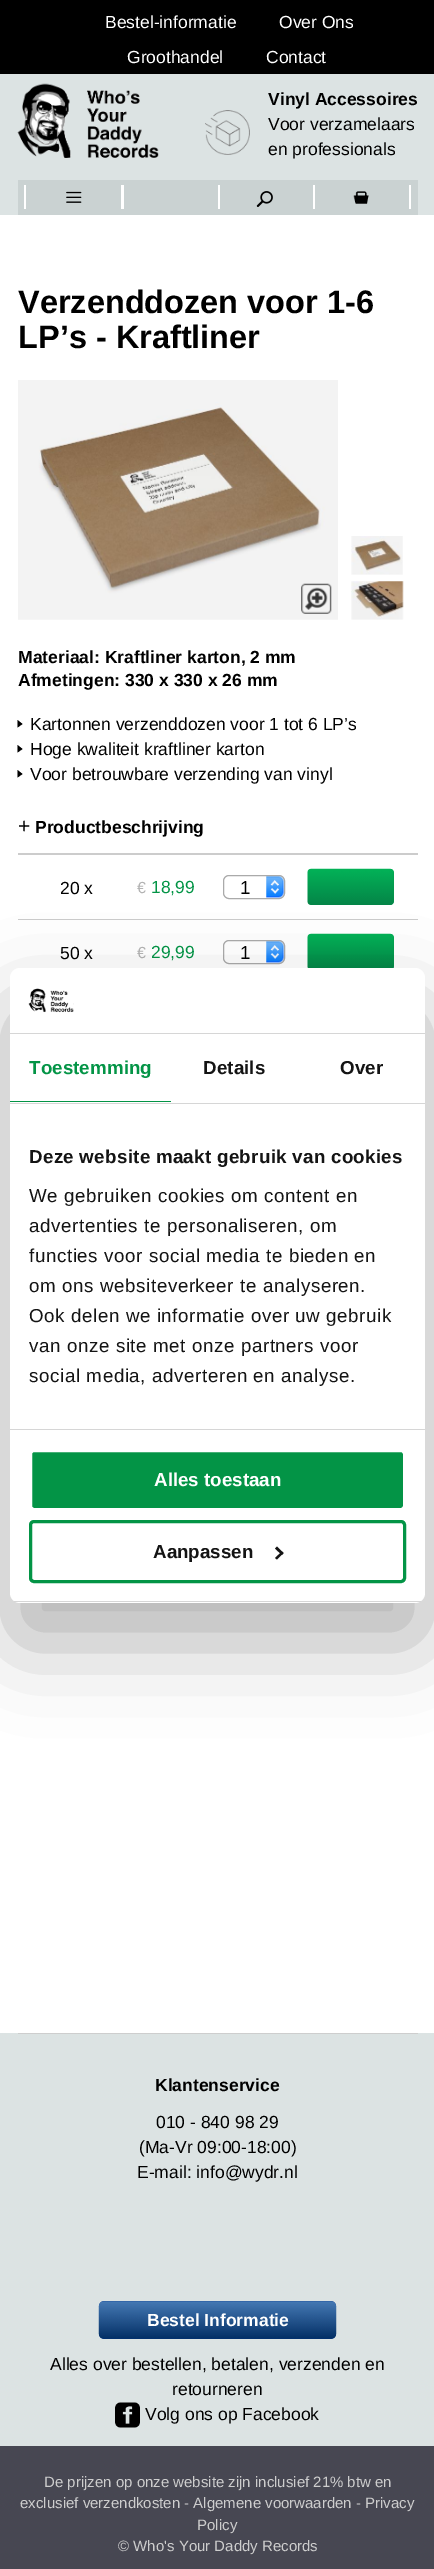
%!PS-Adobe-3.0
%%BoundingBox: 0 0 434 2569
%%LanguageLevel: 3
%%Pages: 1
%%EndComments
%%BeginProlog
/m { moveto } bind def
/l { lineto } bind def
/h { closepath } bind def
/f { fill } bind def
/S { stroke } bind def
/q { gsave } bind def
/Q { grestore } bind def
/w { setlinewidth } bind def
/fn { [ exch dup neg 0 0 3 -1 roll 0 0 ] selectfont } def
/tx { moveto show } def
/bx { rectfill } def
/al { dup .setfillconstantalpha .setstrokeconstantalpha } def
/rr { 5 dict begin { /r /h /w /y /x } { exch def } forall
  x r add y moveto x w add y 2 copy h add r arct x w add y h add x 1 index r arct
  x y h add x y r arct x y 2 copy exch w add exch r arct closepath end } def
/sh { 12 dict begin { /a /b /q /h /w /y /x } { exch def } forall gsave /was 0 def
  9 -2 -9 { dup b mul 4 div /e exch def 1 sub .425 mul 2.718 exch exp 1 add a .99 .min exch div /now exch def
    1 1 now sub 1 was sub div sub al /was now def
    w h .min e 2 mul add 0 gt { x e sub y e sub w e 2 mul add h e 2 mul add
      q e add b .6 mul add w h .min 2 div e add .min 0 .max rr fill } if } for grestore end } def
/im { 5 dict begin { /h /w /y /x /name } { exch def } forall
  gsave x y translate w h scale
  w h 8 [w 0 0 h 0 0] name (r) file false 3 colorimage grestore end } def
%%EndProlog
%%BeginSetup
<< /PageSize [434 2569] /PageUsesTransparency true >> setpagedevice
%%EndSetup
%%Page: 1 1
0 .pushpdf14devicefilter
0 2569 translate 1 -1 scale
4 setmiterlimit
1 setgray
0 0 434 2569 bx
0.863 0.89 0.89 setrgbcolor
0 74 434 141 bx
0 setgray
0 0 434 74 bx
/LiberationSans-Regular 17.5 fn
1 setgray
(Bestel-informatie) 105 28 tx
(Over Ons) 279 28 tx
(Groothandel) 127 63 tx
(Contact) 266 63 tx
(image0.raw) 17 83 142 75 im
(image1.raw) 205 110 45 45 im
/LiberationSans-Bold 17.5 fn
0 setgray
(Vinyl Accessoires) 268 105 tx
/LiberationSans-Regular 17.5 fn
(Voor verzamelaars) 268 130 tx
(en professionals) 268 155 tx
0.792 0.824 0.824 setrgbcolor
18 180 400 35 bx
1 setgray
24 185 2 24 bx
121 185 3 24 bx
(image2.raw) 66 191 16 12 im
218 185 2 24 bx
313 185 2 24 bx
(image3.raw) 256 191 17 16 im
409 185 2 24 bx
(image4.raw) 353 191 16 13 im
/LiberationSans-Bold 32.5 fn
0 setgray
(Verzenddozen voor 1-6) 18 313 tx
(LP’s - Kraftliner) 18 348 tx
(image5.raw) 18 380 320 240 im
(image6.raw) 301 583 31 31 im
(image7.raw) 351 536 52 39 im
(image8.raw) 351 581 53 39 im
/LiberationSans-Bold 17.5 fn
(Materiaal: Kraftliner karton, 2 mm) 18 663 tx
(Afmetingen: 330 x 330 x 26 mm) 18 686 tx
17.5 727.5 m 17.5 720 l 22.5 724 l h f
/LiberationSans-Regular 17.5 fn
(Kartonnen verzenddozen voor 1 tot 6 LP’s) 30 730 tx
17.5 752.5 m 17.5 745 l 22.5 749 l h f
(Hoge kwaliteit kraftliner karton) 30 755 tx
17.5 777.5 m 17.5 770 l 22.5 774 l h f
(Voor betrouwbare verzending van vinyl) 30 780 tx
/LiberationSans-Regular 21 fn
(+) 18 833 tx
/LiberationSans-Bold 17.5 fn
(Productbeschrijving) 35 833 tx
0.8 setgray
18 853 400 2 bx
/LiberationSans-Regular 17.5 fn
0 setgray
(20 x) 60 894 tx
/LiberationSans-Regular 16 fn
0.702 setgray
(€) 137 893 tx
/LiberationSans-Regular 17.5 fn
0.012 0.58 0.275 setrgbcolor
(18,99) 151 893 tx
(image9.raw) 266 876 18 22 im
0.667 setgray
223.5 875.5 61 23 5.5 rr S
/LiberationSans-Regular 18.75 fn
0 setgray
(1) 240 894 tx
(image10.raw) 307 868 87 37 im
0.8 setgray
18 919 400 1 bx
/LiberationSans-Regular 17.5 fn
0 setgray
(50 x) 60 959 tx
/LiberationSans-Regular 16 fn
0.702 setgray
(€) 137 958 tx
/LiberationSans-Regular 17.5 fn
0.012 0.58 0.275 setrgbcolor
(29,99) 151 958 tx
(image9.raw) 266 941 18 22 im
0.667 setgray
223.5 940.5 61 23 5.5 rr S
/LiberationSans-Regular 18.75 fn
0 setgray
(1) 240 959 tx
(image11.raw) 307 933 87 35 im
0.863 0.89 0.89 setrgbcolor
0 2033 434 413 bx
0.808 setgray
18 2033 400 1 bx
/LiberationSans-Bold 17.5 fn
0 setgray
(Klantenservice) 155 2091 tx
/LiberationSans-Regular 17.5 fn
(010 - 840 98 29) 156 2128 tx
(\(Ma-Vr 09:00-18:00\)) 139 2153 tx
(E-mail: info@wydr.nl) 137 2178 tx
0 0.204 0.545 setrgbcolor
99 2301 237 38 5 rr f
(image12.raw) 98 2301 239 38 im
/LiberationSans-Bold 17.5 fn
1 setgray
(Bestel Informatie) 147 2326 tx
/LiberationSans-Regular 17.5 fn
0 setgray
(Alles over bestellen, betalen, verzenden en) 50 2370 tx
(retourneren) 172 2395 tx
(image13.raw) 115 2402 25 26 im
(Volg ons op Facebook) 145 2420 tx
0.278 0.278 0.322 setrgbcolor
0 2446 434 123 bx
/LiberationSans-Regular 15 fn
0.804 setgray
(De prijzen op onze website zijn inclusief 21% btw en) 44 2487 tx
(exclusief verzendkosten - Algemene voorwaarden - Privacy) 20 2508 tx
(Policy) 197 2530 tx
(© Who's Your Daddy Records) 118 2551 tx
0 setgray
10 1008 415 635 10 42.5 0.3 sh
1 setgray
10 968 415 635 10 rr f
0.839 setgray
10 1033 415 1 bx
(image14.raw) 28 988 46 25 im
10 1103 415 1 bx
0.012 0.58 0.275 setrgbcolor
10 1101 161 1 bx
/LiberationSans-Bold 18.75 fn
29 1074 m 0.1 0 (Toestemming) ashow
0.078 setgray
203 1074 m 0.1 0 (Details) ashow
340 1074 m 0.1 0 (Over) ashow
0.839 setgray
10 1429 415 1 bx
0.078 setgray
29 1163 m 0.3 0 (Deze website maakt gebruik van cookies) ashow
/LiberationSans-Regular 18.75 fn
29 1202 m 0.6 0 (We gebruiken cookies om content en) ashow
29 1232 m 0.6 0 (advertenties te personaliseren, om) ashow
29 1262 m 0.6 0 (functies voor social media te bieden en) ashow
29 1292 m 0.6 0 (om ons websiteverkeer te analyseren.) ashow
29 1322 m 0.6 0 (Ook delen we informatie over uw gebruik) ashow
29 1352 m 0.6 0 (van onze site met onze partners voor) ashow
29 1382 m 0.6 0 (social media, adverteren en analyse.) ashow
q
10 968 415 635 10 rr clip newpath
0.839 setgray
10 1601 415 1 bx
Q
0.012 0.58 0.275 setrgbcolor
30.5 1450.5 374 59 3.5 rr q f Q
1 setgray
3 w
S
/LiberationSans-Bold 18.75 fn
(Alles toestaan) 154 1486 tx
0.012 0.58 0.275 setrgbcolor
30.5 1521.5 374 60 3.5 rr S
0.078 setgray
(Aanpassen) 153 1558 tx
277 1546.5 m 283.5 1553 l 282 1555 l 275 1548.5 l h f
282 1551.5 m 283.5 1553 l 277 1559.5 l 275 1558 l h f
.poppdf14devicefilter showpage
%%EOF
